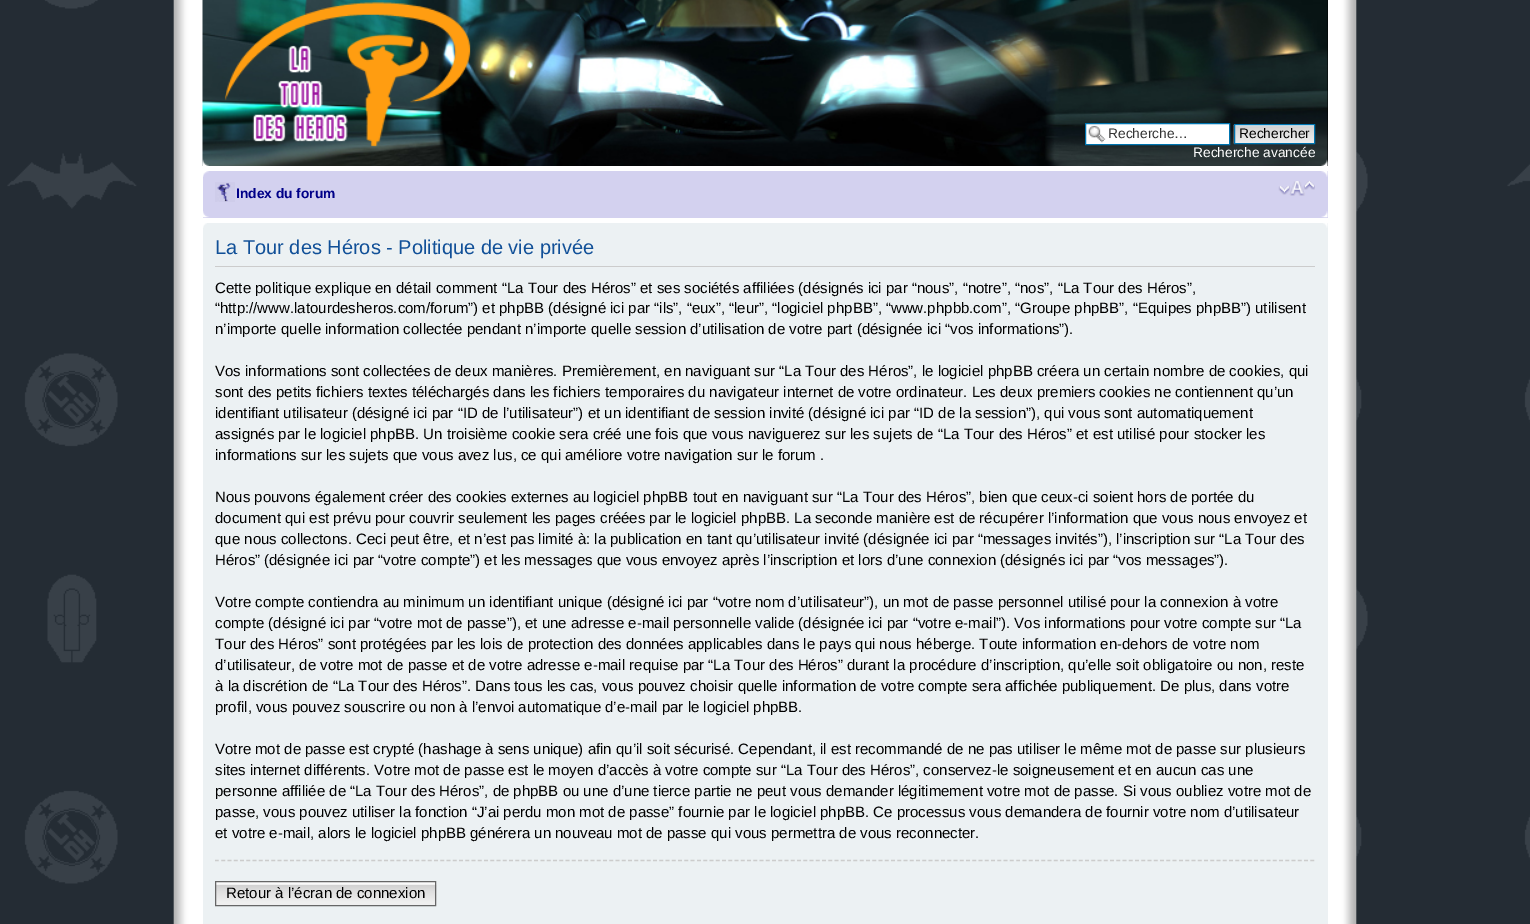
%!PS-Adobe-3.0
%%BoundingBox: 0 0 1530 924
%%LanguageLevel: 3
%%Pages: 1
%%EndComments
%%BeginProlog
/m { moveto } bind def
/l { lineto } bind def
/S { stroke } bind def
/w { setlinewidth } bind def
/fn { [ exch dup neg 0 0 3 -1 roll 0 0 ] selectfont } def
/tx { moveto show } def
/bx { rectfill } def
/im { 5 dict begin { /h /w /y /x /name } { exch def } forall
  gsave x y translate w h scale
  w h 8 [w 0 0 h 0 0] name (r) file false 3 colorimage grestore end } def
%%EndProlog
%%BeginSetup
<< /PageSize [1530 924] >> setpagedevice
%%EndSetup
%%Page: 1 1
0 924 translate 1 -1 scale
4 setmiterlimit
1 setgray
0 0 1530 924 bx
(image0.raw) 0 0 1530 924 im
(image1.raw) 173 0 1184 924 im
0 setgray
1327 0 1 166 bx
(image2.raw) 202 0 1126 166 im
(image3.raw) 224 2 247 145 im
1 setgray
1086 124 143 20 bx
(image4.raw) 1088 125 18 18 im
0 0.459 0.69 setrgbcolor
1085.5 123.5 144 21 rectstroke
/LiberationSans-Regular 13.75 fn
0.2 setgray
(Recherche…) 1108 138 tx
(image5.raw) 1233 124 81 20 im
0 0.459 0.69 setrgbcolor
1234.5 124.5 80 19 rectstroke
0 setgray
(Rechercher) 1239 138 tx
1 setgray
(Recherche avancée) 1193 157 tx
(image6.raw) 202 159 7 7 im
(image7.raw) 1321 159 7 7 im
0.827 0.82 0.937 setrgbcolor
203 171 1125 47 bx
(image8.raw) 203 171 6 6 im
(image9.raw) 1321 171 7 6 im
(image10.raw) 215 182 20 20 im
/LiberationSans-Bold 13.75 fn
0 0 0.533 setrgbcolor
(Index du forum) 236 198 tx
(image11.raw) 1278 181 37 15 im
(image12.raw) 203 211 6 7 im
(image13.raw) 1321 211 7 7 im
0.925 0.945 0.953 setrgbcolor
203 223 1125 701 bx
(image14.raw) 203 223 4 5 im
(image15.raw) 1323 223 5 5 im
0.8 setgray
215 266 1100 1 bx
/LiberationSans-Regular 20 fn
0.067 0.314 0.596 setrgbcolor
(La Tour des Héros - Politique de vie privée) 215 254 tx
/LiberationSans-Regular 15 fn
0 setgray
(Cette politique explique en détail comment “La Tour des Héros” et ses sociétés affiliées \(désignés ici par “nous”, “notre”, “nos”, “La Tour des Héros”,) 215 293 tx
(“http://www.latourdesheros.com/forum”\) et phpBB \(désigné ici par “ils”, “eux”, “leur”, “logiciel phpBB”, “www.phpbb.com”, “Groupe phpBB”, “Equipes phpBB”\) utilisent) 215 313 tx
(n’importe quelle information collectée pendant n’importe quelle session d’utilisation de votre part \(désignée ici “vos informations”\).) 215 334 tx
(Vos informations sont collectées de deux manières. Premièrement, en naviguant sur “La Tour des Héros”, le logiciel phpBB créera un certain nombre de cookies, qui) 215 376 tx
(sont des petits fichiers textes téléchargés dans les fichiers temporaires du navigateur internet de votre ordinateur. Les deux premiers cookies ne contiennent qu’un) 215 397 tx
(identifiant utilisateur \(désigné ici par “ID de l’utilisateur”\) et un identifiant de session invité \(désigné ici par “ID de la session”\), qui vous sont automatiquement) 215 418 tx
(assignés par le logiciel phpBB. Un troisième cookie sera créé une fois que vous naviguerez sur les sujets de “La Tour des Héros” et est utilisé pour stocker les) 215 439 tx
(informations sur les sujets que vous avez lus, ce qui améliore votre navigation sur le forum .) 215 460 tx
(Nous pouvons également créer des cookies externes au logiciel phpBB tout en naviguant sur “La Tour des Héros”, bien que ceux-ci soient hors de portée du) 215 502 tx
(document qui est prévu pour couvrir seulement les pages créées par le logiciel phpBB. La seconde manière est de récupérer l’information que vous nous envoyez et) 215 523 tx
(que nous collectons. Ceci peut être, et n’est pas limité à: la publication en tant qu’utilisateur invité \(désignée ici par “messages invités”\), l’inscription sur “La Tour des) 215 544 tx
(Héros” \(désignée ici par “votre compte”\) et les messages que vous envoyez après l’inscription et lors d’une connexion \(désignés ici par “vos messages”\).) 215 565 tx
(Votre compte contiendra au minimum un identifiant unique \(désigné ici par “votre nom d’utilisateur”\), un mot de passe personnel utilisé pour la connexion à votre) 215 607 tx
(compte \(désigné ici par “votre mot de passe”\), et une adresse e-mail personnelle valide \(désignée ici par “votre e-mail”\). Vos informations pour votre compte sur “La) 215 628 tx
(Tour des Héros” sont protégées par les lois de protection des données applicables dans le pays qui nous héberge. Toute information en-dehors de votre nom) 215 649 tx
(d’utilisateur, de votre mot de passe et de votre adresse e-mail requise par “La Tour des Héros” durant la procédure d’inscription, qu’elle soit obligatoire ou non, reste) 215 670 tx
(à la discrétion de “La Tour des Héros”. Dans tous les cas, vous pouvez choisir quelle information de votre compte sera affichée publiquement. De plus, dans votre) 215 691 tx
(profil, vous pouvez souscrire ou non à l’envoi automatique d’e-mail par le logiciel phpBB.) 215 712 tx
(Votre mot de passe est crypté \(hashage à sens unique\) afin qu’il soit sécurisé. Cependant, il est recommandé de ne pas utiliser le même mot de passe sur plusieurs) 215 754 tx
(sites internet différents. Votre mot de passe est le moyen d’accès à votre compte sur “La Tour des Héros”, conservez-le soigneusement et en aucun cas une) 215 775 tx
(personne affiliée de “La Tour des Héros”, de phpBB ou une d’une tierce partie ne peut vous demander légitimement votre mot de passe. Si vous oubliez votre mot de) 215 796 tx
(passe, vous pouvez utiliser la fonction “J’ai perdu mon mot de passe” fournie par le logiciel phpBB. Ce processus vous demandera de fournir votre nom d’utilisateur) 215 817 tx
(et votre e-mail, alors le logiciel phpBB générera un nouveau mot de passe qui vous permettra de vous reconnecter.) 215 838 tx
0.8 setgray
1.2 w
[3.75 2.51] 0 setdash
215 860.5 m 1315 860.5 l S
(image16.raw) 216 884 221 22 im
0.98 setgray
216 882 219 2 bx
0.4 setgray
1 w
[] 0 setdash
215.5 881.5 220 24 rectstroke
0 setgray
(Retour à l’écran de connexion) 226 898 tx
showpage
%%EOF
